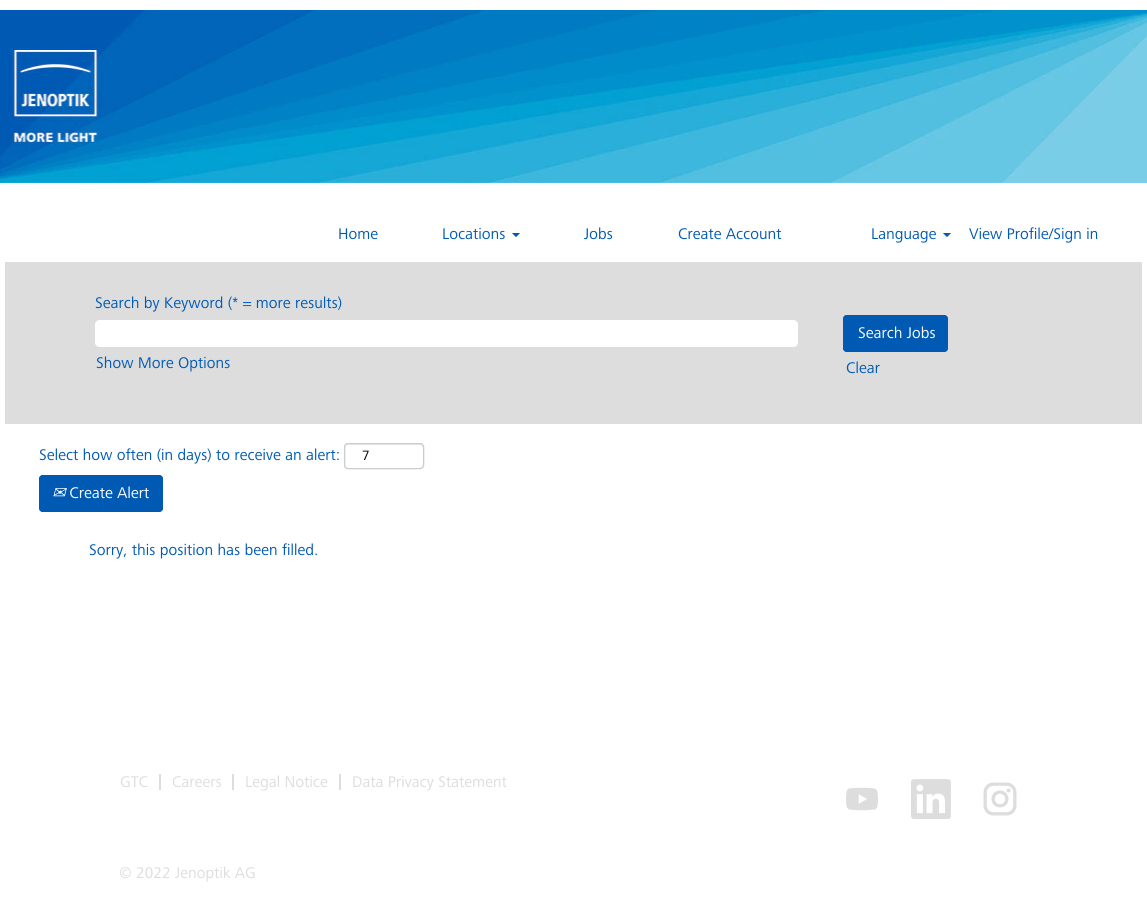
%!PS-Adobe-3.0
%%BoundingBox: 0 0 1147 903
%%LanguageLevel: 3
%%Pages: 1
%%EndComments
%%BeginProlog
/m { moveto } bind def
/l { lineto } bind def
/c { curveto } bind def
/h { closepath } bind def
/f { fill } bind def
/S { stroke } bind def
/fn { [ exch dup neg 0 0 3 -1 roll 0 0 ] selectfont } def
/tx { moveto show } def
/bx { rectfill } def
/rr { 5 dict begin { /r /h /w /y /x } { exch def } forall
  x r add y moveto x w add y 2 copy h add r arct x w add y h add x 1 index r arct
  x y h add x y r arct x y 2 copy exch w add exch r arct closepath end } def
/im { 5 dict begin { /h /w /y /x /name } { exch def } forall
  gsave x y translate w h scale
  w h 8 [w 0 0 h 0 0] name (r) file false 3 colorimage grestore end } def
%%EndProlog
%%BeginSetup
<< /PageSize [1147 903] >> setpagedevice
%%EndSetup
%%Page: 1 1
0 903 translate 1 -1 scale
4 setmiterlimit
1 setgray
0 0 1147 903 bx
(image0.raw) 0 10 1147 173 im
(image1.raw) 339 228 39 12 im
(image2.raw) 443 227 62 13 im
0 0.353 0.706 setrgbcolor
512 233 m 520 233 l 516 237 l h f
(image3.raw) 584 227 29 13 im
(image4.raw) 678 228 104 12 im
(image5.raw) 872 228 64 15 im
943 233 m 951 233 l 947 237 l h f
(image6.raw) 969 227 129 16 im
0.867 setgray
5 262 1137 162 bx
(image7.raw) 95 296 247 16 im
1 setgray
95 320 703 27 5 rr f
(image8.raw) 96 356 134 16 im
0 0.353 0.706 setrgbcolor
843 315 105 37 4 rr f
(image9.raw) 858 326 77 13 im
(image10.raw) 846 361 34 13 im
(image11.raw) 39 448 300 16 im
0.925 setgray
348 445 m 420 445 l 422 445 423 446 423 448 c 423 441 412 444 408 444 c 360 444 l 356 444 345 441 345 448 c 345 446 346 445 348 445 c h f
0.8 setgray
344.5 443.5 79 25 3.5 rr S
(image12.raw) 362 450 7 10 im
0 0.353 0.706 setrgbcolor
39 475 124 37 4 rr f
/DejaVuSans-Italic 16 fn
1 setgray
(✉) 52 498 tx
(image13.raw) 70 486 79 13 im
(image14.raw) 89 543 228 16 im
0.867 setgray
159 774 2 16 bx
(image15.raw) 120 776 28 12 im
232 774 2 16 bx
(image16.raw) 172 776 49 12 im
339 774 2 16 bx
(image17.raw) 246 775 82 16 im
(image18.raw) 353 776 154 15 im
(image19.raw) 846 787 32 24 im
(image20.raw) 911 779 40 40 im
(image21.raw) 983 782 34 34 im
(image22.raw) 119 866 136 16 im
showpage
%%EOF
